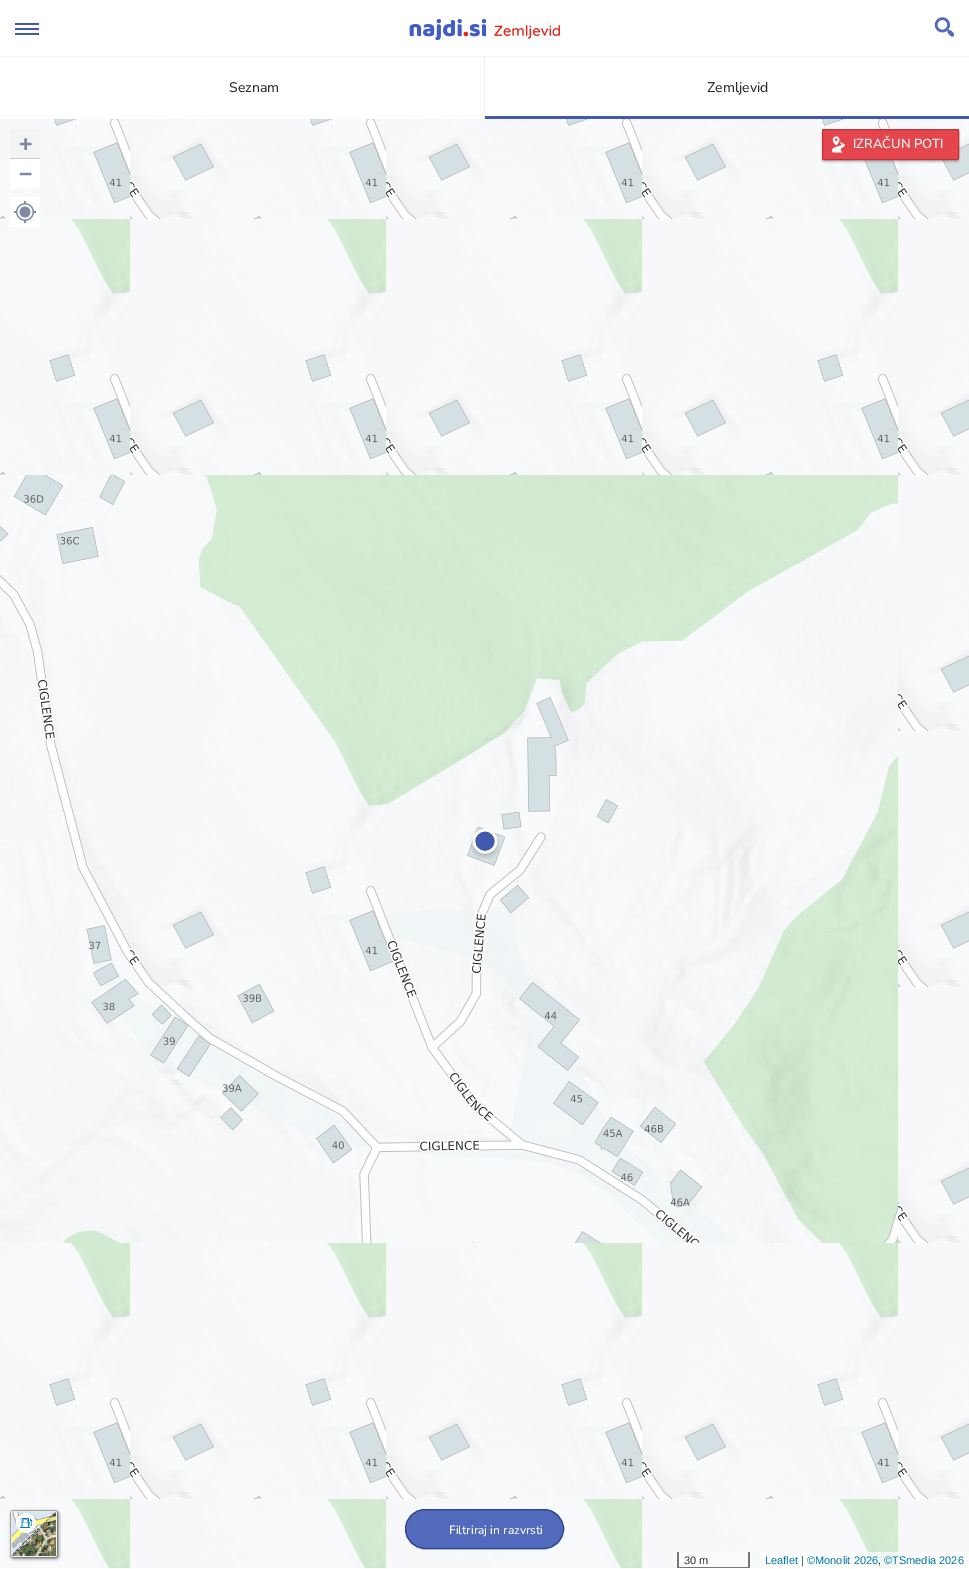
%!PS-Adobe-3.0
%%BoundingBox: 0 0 969 1569
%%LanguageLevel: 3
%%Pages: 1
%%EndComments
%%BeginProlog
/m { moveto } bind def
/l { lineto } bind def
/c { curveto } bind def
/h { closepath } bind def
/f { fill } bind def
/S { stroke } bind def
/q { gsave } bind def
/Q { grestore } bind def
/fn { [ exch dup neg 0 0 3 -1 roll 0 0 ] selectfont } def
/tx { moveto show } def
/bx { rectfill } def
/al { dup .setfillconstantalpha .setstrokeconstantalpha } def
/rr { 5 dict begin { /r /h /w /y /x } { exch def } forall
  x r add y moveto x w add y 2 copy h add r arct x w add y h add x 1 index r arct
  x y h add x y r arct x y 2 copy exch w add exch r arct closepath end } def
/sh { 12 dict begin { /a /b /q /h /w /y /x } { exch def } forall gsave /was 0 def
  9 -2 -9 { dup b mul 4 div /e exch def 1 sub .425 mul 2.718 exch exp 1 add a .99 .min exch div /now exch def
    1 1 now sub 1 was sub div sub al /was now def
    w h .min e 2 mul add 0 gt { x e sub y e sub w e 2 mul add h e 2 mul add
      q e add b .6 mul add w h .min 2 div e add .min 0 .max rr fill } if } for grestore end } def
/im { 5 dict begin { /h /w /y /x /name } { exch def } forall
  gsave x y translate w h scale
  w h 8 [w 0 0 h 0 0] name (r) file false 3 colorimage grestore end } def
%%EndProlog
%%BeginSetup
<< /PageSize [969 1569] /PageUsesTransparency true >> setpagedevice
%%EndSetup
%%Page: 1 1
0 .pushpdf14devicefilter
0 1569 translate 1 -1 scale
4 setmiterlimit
1 setgray
0 0 969 1569 bx
0.937 setgray
484 56 1 63 bx
0.894 setgray
0 1 969 56 0 1 0.5 sh
1 setgray
0 0 969 56 bx
0.259 0.353 0.678 setrgbcolor
15 23 24 2 bx
15 28 24 2 bx
15 33 24 2 bx
(image0.raw) 409 19 151 21 im
(image1.raw) 934 17 20 20 im
/NunitoSans-Medium 14 fn
0.188 0.188 0.184 setrgbcolor
(Seznam) 229 92 tx
(Zemljevid) 707 92 tx
0.259 0.353 0.678 setrgbcolor
485 116 484 3 bx
(image4.raw) 642 119 256 100 im
(image5.raw) 898 119 71 100 im
0.408 0.451 0.514 setrgbcolor
822 131 137 31 2 1 0.45 sh
0.898 0.271 0.298 setrgbcolor
822 129 137 31 2 rr f
(image2.raw) 832 136 13 17 im
0.753 0.196 0.22 setrgbcolor
822.5 129.5 136 30 1.5 rr S
/NunitoSans-Medium 13 fn
1 setgray
(IZRAČUN POTI) 853 148 tx
(image3.raw) 0 119 130 100 im
(image4.raw) 130 119 256 100 im
(image4.raw) 386 119 256 100 im
(image6.raw) 0 219 130 256 im
(image7.raw) 130 219 256 256 im
(image7.raw) 386 219 256 256 im
(image7.raw) 642 219 256 256 im
(image8.raw) 898 219 71 256 im
(image9.raw) 0 475 130 256 im
(image10.raw) 130 475 256 256 im
(image11.raw) 386 475 256 256 im
(image12.raw) 642 475 256 256 im
(image8.raw) 898 475 71 256 im
(image13.raw) 0 731 130 256 im
(image7.raw) 130 731 256 256 im
(image14.raw) 386 731 256 256 im
(image15.raw) 642 731 256 256 im
(image8.raw) 898 731 71 256 im
(image16.raw) 0 987 130 256 im
(image17.raw) 130 987 256 256 im
(image18.raw) 386 987 256 256 im
(image19.raw) 642 987 256 256 im
(image8.raw) 898 987 71 256 im
(image6.raw) 0 1243 130 256 im
(image7.raw) 130 1243 256 256 im
(image7.raw) 386 1243 256 256 im
(image7.raw) 642 1243 256 256 im
(image8.raw) 898 1243 71 256 im
(image20.raw) 0 1499 130 69 im
(image21.raw) 130 1499 256 69 im
(image21.raw) 386 1499 256 69 im
(image21.raw) 642 1499 256 69 im
0.969 0.973 0.976 setrgbcolor
898 1499 71 69 bx
(image22.raw) 470 829 30 30 im
0.957 setgray
12 129 m 38 129 l 39 129 40 130 40 131 c 40 159 l 10 159 l 10 131 l 10 130 11 129 12 129 c h f
0.8 setgray
10 158 30 1 bx
/DejaVuSansMono-Bold 22 fn
0.494 0.537 0.643 setrgbcolor
(+) 19 151 tx
1 setgray
10 159 m 40 159 l 40 187 l 40 188 39 189 38 189 c 12 189 l 11 189 10 188 10 187 c h f
0.494 0.537 0.643 setrgbcolor
(−) 19 181 tx
1 setgray
10 197 30 30 2 rr f
(image23.raw) 14 201 22 22 im
0 setgray
11 1511 48 48 3 1.5 0.4 sh
0.957 setgray
11 1511 46 46 2 rr f
0.2 al
0 setgray
10.5 1510.5 47 47 2.5 rr S
1 al
(image24.raw) 12 1512 44 44 im
0.984 0.988 0.988 setrgbcolor
679 1552 69 15 bx
0.467 setgray
748 1552 2 16 bx
677 1567 73 1 bx
677 1552 2 16 bx
/LiberationSans-Regular 11 fn
0.188 0.188 0.184 setrgbcolor
(30 m) 684 1564 tx
0.7 al
1 setgray
760 1552 209 16 bx
1 al
0 0.471 0.659 setrgbcolor
(Leaflet) 765 1564 tx
0.188 0.188 0.184 setrgbcolor
(|) 801 1564 tx
0 0.471 0.659 setrgbcolor
(©Monolit 2026) 807 1564 tx
0.188 0.188 0.184 setrgbcolor
(,) 878 1564 tx
0 0.471 0.659 setrgbcolor
(©TSmedia 2026) 884 1564 tx
0 setgray
405 1510 159 40 20 1 0.05 sh
0.322 0.416 0.737 setrgbcolor
405.5 1509.5 158 39 19.5 rr q f Q
0.169 0.255 0.557 setrgbcolor
S
/NunitoSans-Medium 12 fn
1 setgray
(Filtriraj in razvrsti) 449 1534 tx
.poppdf14devicefilter showpage
%%EOF
